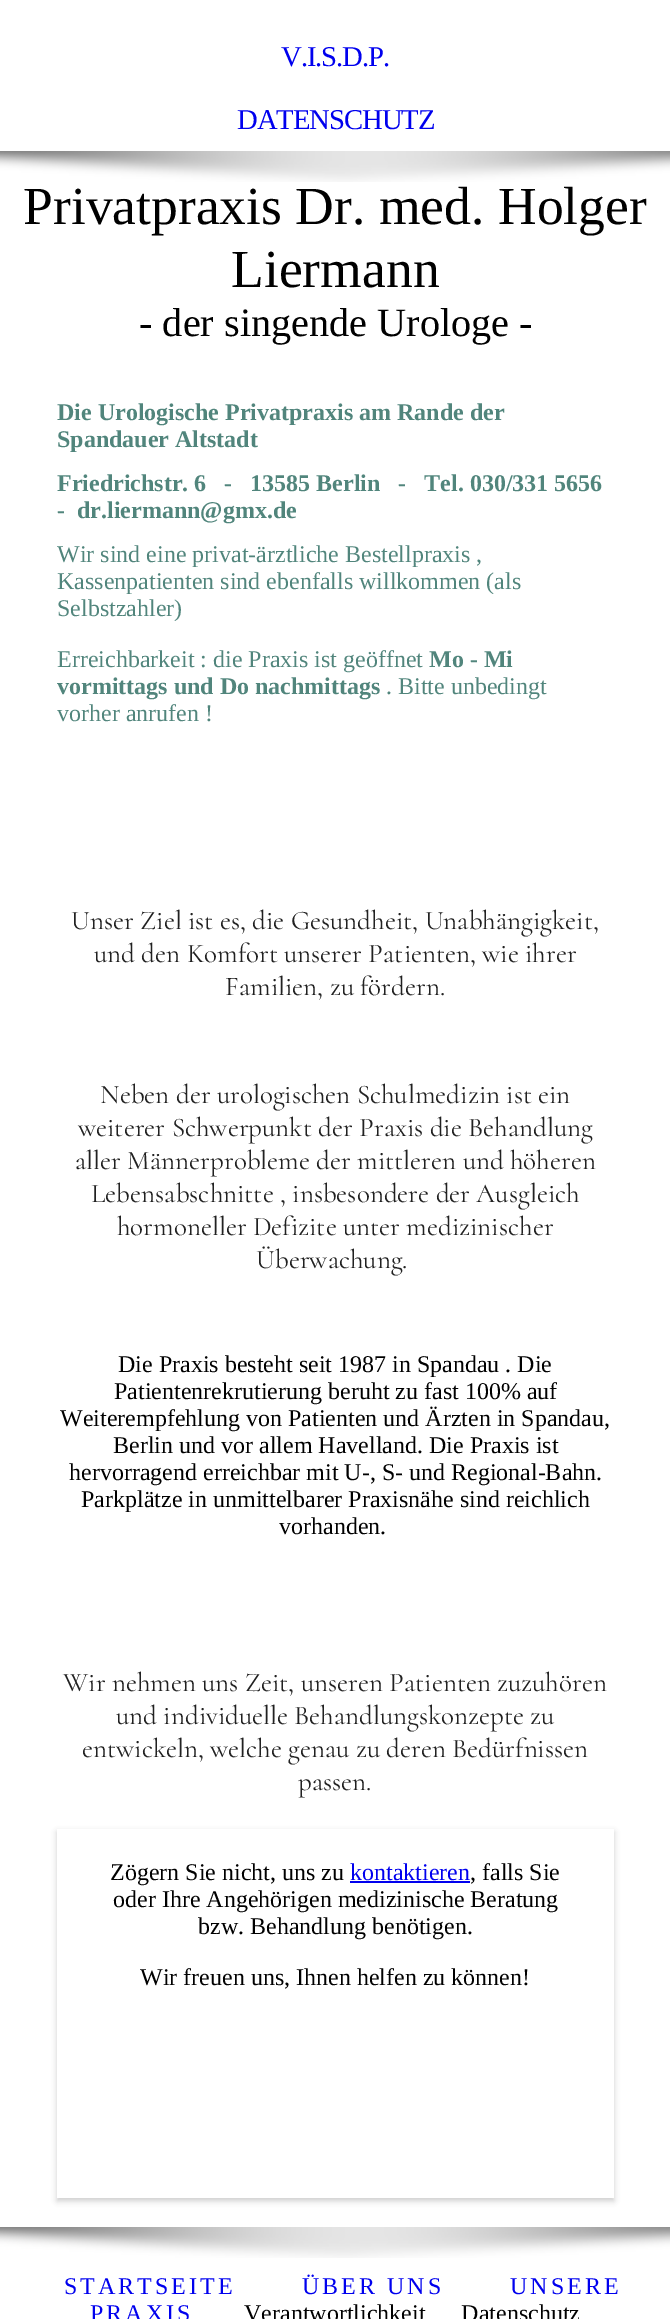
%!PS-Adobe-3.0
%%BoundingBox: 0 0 670 2319
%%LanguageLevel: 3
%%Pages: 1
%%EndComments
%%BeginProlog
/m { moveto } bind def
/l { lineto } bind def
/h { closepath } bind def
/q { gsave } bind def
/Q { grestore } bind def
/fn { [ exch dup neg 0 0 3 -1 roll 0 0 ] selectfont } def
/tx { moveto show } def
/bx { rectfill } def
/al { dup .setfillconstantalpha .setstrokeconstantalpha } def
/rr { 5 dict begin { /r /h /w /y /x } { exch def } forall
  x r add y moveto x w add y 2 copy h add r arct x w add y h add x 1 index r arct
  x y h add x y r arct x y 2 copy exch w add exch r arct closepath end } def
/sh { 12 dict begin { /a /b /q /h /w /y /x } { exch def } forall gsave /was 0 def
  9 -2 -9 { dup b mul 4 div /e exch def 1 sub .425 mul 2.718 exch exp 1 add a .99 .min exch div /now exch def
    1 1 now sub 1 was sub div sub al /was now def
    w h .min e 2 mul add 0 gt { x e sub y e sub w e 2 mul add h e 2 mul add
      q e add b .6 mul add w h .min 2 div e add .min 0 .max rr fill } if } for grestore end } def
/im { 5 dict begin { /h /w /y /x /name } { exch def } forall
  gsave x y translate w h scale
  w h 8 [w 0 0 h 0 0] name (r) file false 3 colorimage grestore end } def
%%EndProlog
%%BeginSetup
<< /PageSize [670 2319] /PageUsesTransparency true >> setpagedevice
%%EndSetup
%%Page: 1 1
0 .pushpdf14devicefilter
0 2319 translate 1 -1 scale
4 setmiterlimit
1 setgray
0 0 670 2319 bx
/LiberationSerif-Regular 28.75 fn
0 0 0.933 setrgbcolor
281 66 m -1.1 0 (V.I.S.D.P.) ashow
237 129 m -1.1 0 (DATENSCHUTZ) ashow
(image0.raw) 0 151 670 31 im
/LiberationSerif-Regular 53.6 fn
0 setgray
(Privatpraxis Dr. med. Holger) 23 224 tx
(Liermann) 231 287 tx
/LiberationSerif-Regular 40.25 fn
(- der singende Urologe -) 139 336 tx
/LiberationSerif-Bold 24 fn
0.318 0.522 0.486 setrgbcolor
(Die Urologische Privatpraxis am Rande der) 57 420 tx
(Spandauer Altstadt) 57 447 tx
(Friedrichstr. 6   -   13585 Berlin   -   Tel. 030/331 5656) 57 491 tx
(-  dr.liermann@gmx.de) 57 518 tx
/LiberationSerif-Regular 24 fn
(Wir sind eine privat-ärztliche Bestellpraxis ,) 57 562 tx
(Kassenpatienten sind ebenfalls willkommen \(als) 57 589 tx
(Selbstzahler\)) 57 616 tx
(Erreichbarkeit : die Praxis ist geöffnet) 57 667 tx
/LiberationSerif-Bold 24 fn
(Mo - Mi) 429 667 tx
(vormittags und Do nachmittags) 57 694 tx
/LiberationSerif-Regular 24 fn
(. Bitte unbedingt) 386 694 tx
(vorher anrufen !) 57 721 tx
/Cormorant-Regular 27 fn
0.129 setgray
(Unser Ziel ist es, die Gesundheit, Unabhängigkeit,) 71 929 tx
(und den Komfort unserer Patienten, wie ihrer) 94 962 tx
(Familien, zu fördern.) 225 995 tx
(Neben der urologischen Schulmedizin ist ein) 100 1103 tx
(weiterer Schwerpunkt der Praxis die Behandlung) 78 1136 tx
(aller Männerprobleme der mittleren und höheren) 75 1169 tx
(Lebensabschnitte , insbesondere der Ausgleich) 91 1202 tx
(hormoneller Defizite unter medizinischer) 117 1235 tx
(Überwachung.) 256 1268 tx
/LiberationSerif-Regular 24 fn
0 setgray
(Die Praxis besteht seit 1987 in Spandau . Die) 118 1372 tx
(Patientenrekrutierung beruht zu fast 100% auf) 114 1399 tx
(Weiterempfehlung von Patienten und Ärzten in Spandau,) 60 1426 tx
(Berlin und vor allem Havelland. Die Praxis ist) 113 1453 tx
(hervorragend erreichbar mit U-, S- und Regional-Bahn.) 69 1480 tx
(Parkplätze in unmittelbarer Praxisnähe sind reichlich) 81 1507 tx
(vorhanden.) 279 1534 tx
/Cormorant-Regular 27 fn
0.129 setgray
(Wir nehmen uns Zeit, unseren Patienten zuzuhören) 63 1691 tx
(und individuelle Behandlungskonzepte zu) 116 1724 tx
(entwickeln, welche genau zu deren Bedürfnissen) 82 1757 tx
(passen.) 298 1790 tx
q
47 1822 m 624 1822 l 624 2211 l 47 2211 l h 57 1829 m 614 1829 l 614 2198 l 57 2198 l h eoclip newpath
0.8 setgray
57 1832 557 369 0 3 1 sh
Q
/LiberationSerif-Regular 24 fn
0 setgray
(Zögern Sie nicht, uns zu) 110 1880 tx
0 0 0.933 setrgbcolor
(kontaktieren) 350 1880 tx
350 1881 120 2 bx
0 setgray
(, falls Sie) 470 1880 tx
(oder Ihre Angehörigen medizinische Beratung) 113 1907 tx
(bzw. Behandlung benötigen.) 198 1934 tx
(Wir freuen uns, Ihnen helfen zu können!) 140 1985 tx
(image0.raw) 0 2227 670 31 im
0 0 0.933 setrgbcolor
64 2294 m 3 0 (STARTSEITE) ashow
302 2294 m 3 0 (ÜBER UNS) ashow
510 2294 m 3 0 (UNSERE) ashow
90 2321 m 3 0 (PRAXIS) ashow
0 setgray
(Verantwortlichkeit      Datenschutz) 244 2321 tx
.poppdf14devicefilter showpage
%%EOF
